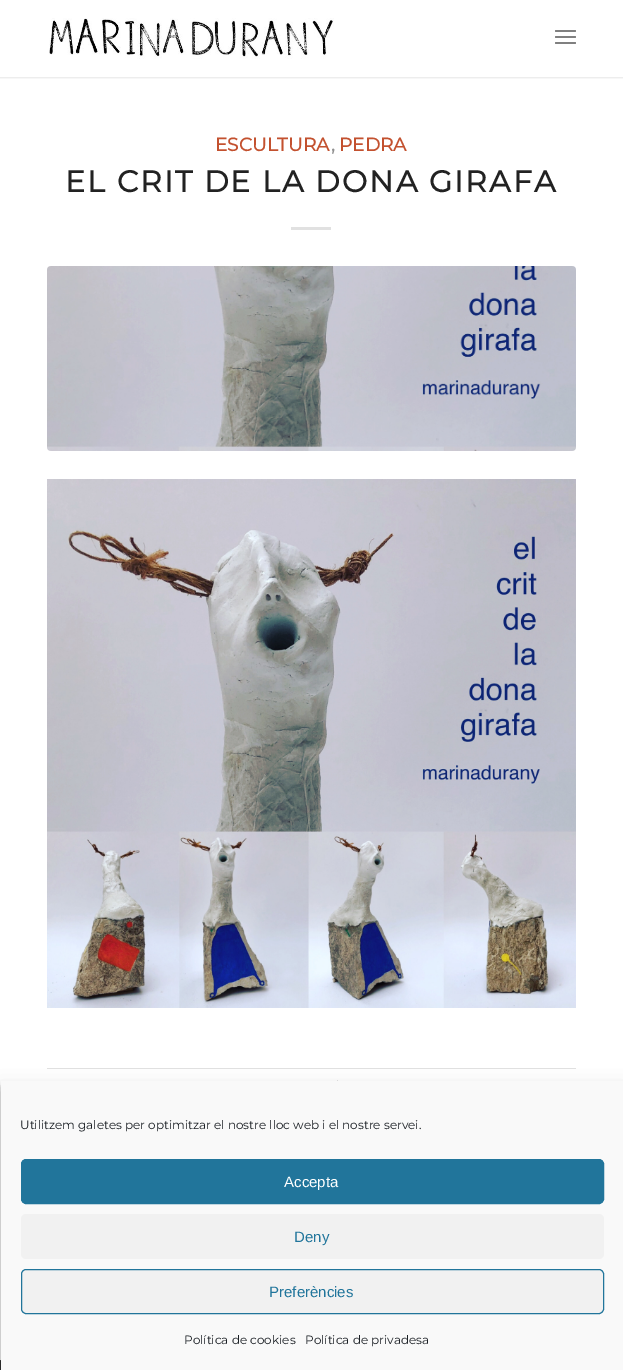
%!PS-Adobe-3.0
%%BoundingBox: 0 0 623 1370
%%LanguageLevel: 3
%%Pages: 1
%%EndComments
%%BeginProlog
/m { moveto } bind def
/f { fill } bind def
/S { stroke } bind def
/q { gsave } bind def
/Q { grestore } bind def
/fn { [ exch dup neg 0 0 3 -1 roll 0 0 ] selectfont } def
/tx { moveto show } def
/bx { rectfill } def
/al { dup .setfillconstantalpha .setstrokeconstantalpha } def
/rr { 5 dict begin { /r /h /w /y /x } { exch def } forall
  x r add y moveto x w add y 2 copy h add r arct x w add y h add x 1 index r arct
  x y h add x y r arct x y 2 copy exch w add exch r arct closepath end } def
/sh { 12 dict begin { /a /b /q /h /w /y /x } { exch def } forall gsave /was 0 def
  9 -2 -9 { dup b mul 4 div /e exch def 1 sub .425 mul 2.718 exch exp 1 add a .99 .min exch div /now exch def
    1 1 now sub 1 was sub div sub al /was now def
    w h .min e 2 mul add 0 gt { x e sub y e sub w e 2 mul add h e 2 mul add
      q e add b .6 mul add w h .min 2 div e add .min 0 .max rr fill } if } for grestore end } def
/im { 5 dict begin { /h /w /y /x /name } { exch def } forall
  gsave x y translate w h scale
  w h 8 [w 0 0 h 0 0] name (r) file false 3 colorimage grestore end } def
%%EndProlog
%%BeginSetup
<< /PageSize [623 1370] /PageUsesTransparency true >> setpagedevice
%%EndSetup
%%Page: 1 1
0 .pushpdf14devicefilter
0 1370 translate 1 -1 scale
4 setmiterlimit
1 setgray
0 0 623 1370 bx
q
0 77 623 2 rectclip
0 setgray
-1 -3 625 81 0 1 0.1 sh
Q
(image0.raw) 49 18 285 41 im
0.502 setgray
555 36 21 2 1 rr f
555 30 21 2 1 rr f
555 42 21 2 1 rr f
/Montserrat-Bold 18.5 fn
0.765 0.318 0.184 setrgbcolor
(ESCULTURA) 215 151 tx
(PEDRA) 339 151 tx
0.569 setgray
(,) 331 151 tx
/Montserrat-Bold 30 fn
0.133 setgray
65 192 m 2 0 (EL CRIT DE LA DONA GIRAFA) ashow
0.882 setgray
291 227 40 3 bx
(image1.raw) 47 266 529 185 im
(image2.raw) 47 479 529 529 im
47 1068 529 1 bx
337 1080 1 1 bx
0.2 setgray
0 1361 1 9 bx
0.267 setgray
0 1360 1 1 bx
0 setgray
1 1087 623 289 0 3 0.23 sh
1 1091 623 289 0 10 0.19 sh
0.976 setgray
1 1081 622 289 bx
/Montserrat-Thin 12 fn
0.098 0.118 0.137 setrgbcolor
(Utilitzem galetes per optimitzar el nostre lloc web i el nostre servei.) 20 1129 tx
0.129 0.459 0.608 setrgbcolor
21.5 1159.5 582 44 4.5 rr q f Q
S
/LiberationSans-Regular 15 fn
1 setgray
(Accepta) 284 1187 tx
0.945 setgray
21 1214 583 45 5 rr f
0.129 0.459 0.608 setrgbcolor
(Deny) 294 1242 tx
0.945 setgray
21.5 1269.5 582 44 4.5 rr q f Q
0.129 0.459 0.608 setrgbcolor
S
(Preferències) 269 1297 tx
/Montserrat-Thin 12 fn
0.098 0.118 0.137 setrgbcolor
(Política de cookies) 184 1344 tx
(Política de privadesa) 305 1344 tx
.poppdf14devicefilter showpage
%%EOF
